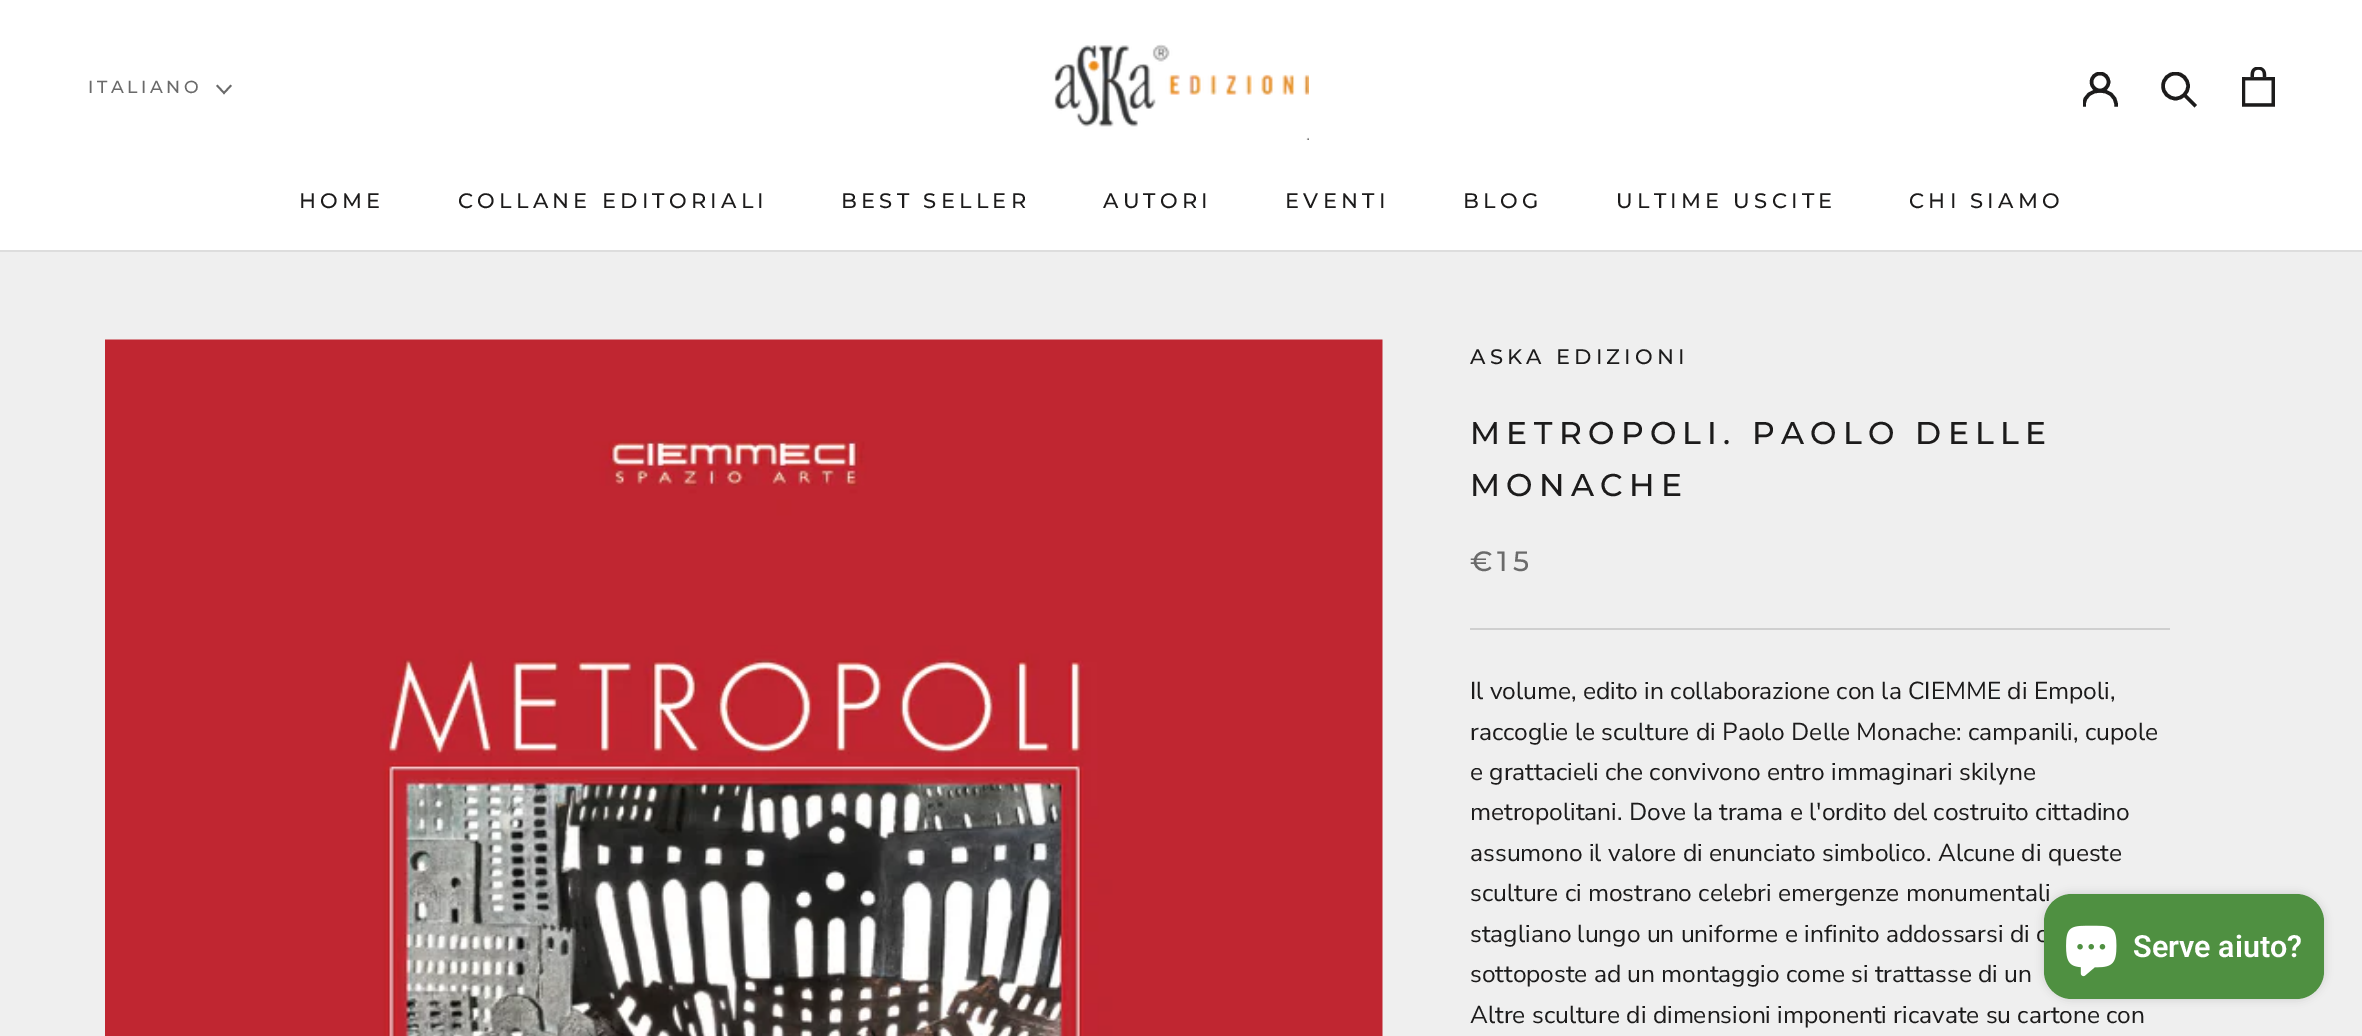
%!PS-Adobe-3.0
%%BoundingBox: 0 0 2362 1036
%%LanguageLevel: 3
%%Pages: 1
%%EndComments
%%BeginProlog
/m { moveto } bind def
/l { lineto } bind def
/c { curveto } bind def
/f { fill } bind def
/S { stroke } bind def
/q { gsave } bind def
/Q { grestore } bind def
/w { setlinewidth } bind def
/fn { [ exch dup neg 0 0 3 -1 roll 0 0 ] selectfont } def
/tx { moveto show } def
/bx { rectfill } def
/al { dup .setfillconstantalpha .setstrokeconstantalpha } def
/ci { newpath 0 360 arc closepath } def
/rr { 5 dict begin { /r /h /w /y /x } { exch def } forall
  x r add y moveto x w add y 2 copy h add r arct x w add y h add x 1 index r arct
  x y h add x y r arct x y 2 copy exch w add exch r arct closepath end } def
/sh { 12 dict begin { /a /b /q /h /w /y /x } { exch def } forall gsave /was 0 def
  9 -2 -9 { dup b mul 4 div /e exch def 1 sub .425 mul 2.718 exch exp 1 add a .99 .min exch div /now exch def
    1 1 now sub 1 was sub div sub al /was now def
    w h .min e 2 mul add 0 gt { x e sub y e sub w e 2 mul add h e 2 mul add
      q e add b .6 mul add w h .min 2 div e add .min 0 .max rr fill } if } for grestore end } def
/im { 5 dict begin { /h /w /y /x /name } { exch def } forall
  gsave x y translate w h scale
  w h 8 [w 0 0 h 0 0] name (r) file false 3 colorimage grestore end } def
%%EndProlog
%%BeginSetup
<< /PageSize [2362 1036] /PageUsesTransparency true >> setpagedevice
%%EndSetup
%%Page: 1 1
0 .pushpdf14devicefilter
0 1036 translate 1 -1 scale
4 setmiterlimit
0.937 setgray
0 0 2362 1036 bx
1 setgray
0 0 2362 250 bx
0.867 setgray
0 250 2362 2 bx
(image0.raw) 1054 44 255 96 im
q
2083 72 35 35 rectclip
0.11 0.106 0.106 setrgbcolor
3.5 w
2 setlinecap
2084 105 m 2084 86 2116 86 2116 105 c S
0 setlinecap
2100 82 8.5 ci S
Q
0.11 0.106 0.106 setrgbcolor
3.5 w
2 setlinecap
2194.5 105 m 2184.5 95 l S
q
2161 72 37 37 rectclip
0 setlinecap
2175.5 86 12.5 ci S
Q
(image1.raw) 2242 67 33 40 im
/Montserrat-Medium 17.5 fn
0.416 setgray
88 93 m 3.5 0 (ITALIANO) ashow
1.8 w
230.5 86 m 224 93 l 217.5 86 l S
/Montserrat-Medium 21 fn
0.11 0.106 0.106 setrgbcolor
299 208 m 4.25 0 (HOME) ashow
458 208 m 4.25 0 (COLLANE EDITORIALI) ashow
841 208 m 4.25 0 (BEST SELLER) ashow
1103 208 m 4.25 0 (AUTORI) ashow
1285 208 m 4.25 0 (EVENTI) ashow
1463 208 m 4.25 0 (BLOG) ashow
1616 208 m 4.25 0 (ULTIME USCITE) ashow
1909 208 m 4.25 0 (CHI SIAMO) ashow
(image2.raw) 105 339 1278 697 im
1470 364 m 4.25 0 (ASKA EDIZIONI) ashow
/Montserrat-Medium 31.5 fn
1470 444 m 6.3 0 (METROPOLI. PAOLO DELLE) ashow
1470 496 m 6.3 0 (MONACHE) ashow
/Montserrat-Medium 28 fn
0.416 setgray
1470 571 m 5 0 (€15) ashow
0.812 setgray
1470 628 700 2 bx
/NunitoSans-Regular 24.5 fn
0.11 0.106 0.106 setrgbcolor
(Il volume, edito in collaborazione con la CIEMME di Empoli,) 1470 699 tx
(raccoglie le sculture di Paolo Delle Monache: campanili, cupole) 1470 740 tx
(e grattacieli che convivono entro immaginari skilyne) 1470 780 tx
(metropolitani. Dove la trama e l'ordito del costruito cittadino) 1470 820 tx
(assumono il valore di enunciato simbolico. Alcune di queste) 1470 861 tx
(sculture ci mostrano celebri emergenze monumentali) 1470 901 tx
(stagliano lungo un uniforme e infinito addossarsi di c) 1470 942 tx
(sottoposte ad un montaggio come si trattasse di un) 1470 982 tx
(Altre sculture di dimensioni imponenti ricavate su cartone con) 1470 1023 tx
0 setgray
2044 894 280 105 28 4.5 0.15 sh
0.31 0.565 0.255 setrgbcolor
2044 894 280 105 28 rr f
(image3.raw) 2066 925 51 52 im
/Roboto-SemiBold 30.5 fn
1 setgray
(Serve aiuto?) 2133 957 tx
.poppdf14devicefilter showpage
%%EOF
